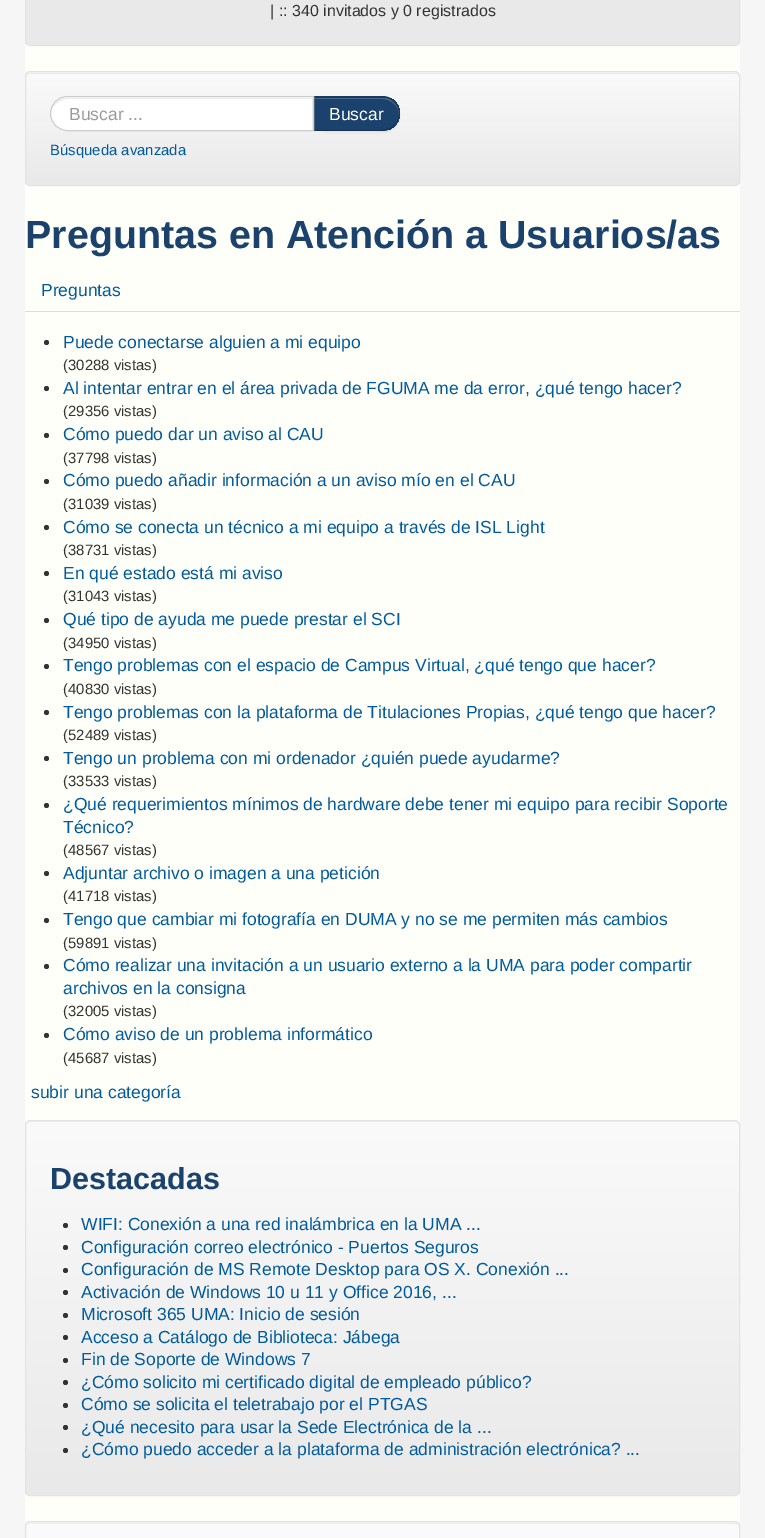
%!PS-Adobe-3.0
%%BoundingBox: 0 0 765 1538
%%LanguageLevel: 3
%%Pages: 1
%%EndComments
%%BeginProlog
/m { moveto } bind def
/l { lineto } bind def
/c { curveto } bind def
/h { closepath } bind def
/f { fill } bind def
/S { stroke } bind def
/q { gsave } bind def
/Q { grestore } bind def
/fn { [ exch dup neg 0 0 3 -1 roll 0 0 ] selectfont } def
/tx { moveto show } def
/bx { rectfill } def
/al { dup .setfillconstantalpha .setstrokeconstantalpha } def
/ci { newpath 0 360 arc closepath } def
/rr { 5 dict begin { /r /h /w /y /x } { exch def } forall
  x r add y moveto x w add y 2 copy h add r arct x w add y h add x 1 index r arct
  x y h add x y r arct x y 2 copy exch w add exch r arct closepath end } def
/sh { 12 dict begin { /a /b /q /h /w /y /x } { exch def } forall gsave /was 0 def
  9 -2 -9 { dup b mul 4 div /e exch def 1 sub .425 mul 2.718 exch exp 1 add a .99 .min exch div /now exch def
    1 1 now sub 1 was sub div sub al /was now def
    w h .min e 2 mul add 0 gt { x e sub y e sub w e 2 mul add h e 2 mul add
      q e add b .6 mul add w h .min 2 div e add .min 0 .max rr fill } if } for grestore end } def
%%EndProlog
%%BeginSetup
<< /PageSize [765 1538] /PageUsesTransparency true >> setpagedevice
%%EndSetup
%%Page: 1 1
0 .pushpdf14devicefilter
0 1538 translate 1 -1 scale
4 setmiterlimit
0.965 setgray
0 0 765 1538 bx
1 1 0.976 setrgbcolor
25 41 715 1485 bx
q
25 -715 715 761 5 rr clip newpath
q 25 0 m 740 0 l 740 45 l 25 45 l h clip newpath
<< /ShadingType 2 /ColorSpace /DeviceRGB /Coords [382 -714 383 45] /Extend [true true] /Function << /FunctionType 2 /Domain [0 1] /C0 [0.98 0.98 0.98] /C1 [0.914 0.914 0.914] /N 1 >> >> shfill Q
Q
0.89 setgray
25.5 -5.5 714 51 4.5 rr S
/LiberationSans-Regular 16 fn
0.2 setgray
(| :: 340 invitados y 0 registrados) 270 16 tx
0.953 setgray
25 71 715 115 5 rr f
q
25 71 715 115 5 rr clip newpath
q 25 73 m 740 73 l 740 185 l 25 185 l h clip newpath
<< /ShadingType 2 /ColorSpace /DeviceRGB /Coords [383 72 383 185] /Extend [true true] /Function << /FunctionType 2 /Domain [0 1] /C0 [0.98 0.98 0.98] /C1 [0.914 0.914 0.914] /N 1 >> >> shfill Q
Q
0.929 setgray
30 74 m 735 74 l 737 74 739 75 739 78 c 739 75 738 73 735 73 c 30 73 l 27 74 l 26 75 l 26 78 l 26 75 28 74 30 74 c h f
0.89 setgray
25.5 71.5 714 114 4.5 rr S
0 setgray
313 98 87 35 17.5 1 0.05 sh
0.106 0.259 0.427 setrgbcolor
313 96 m 382.5 96 l 392 96 400 104 400 113.5 c 400 123 392 131 382.5 131 c 313 131 l h f
q
313 96 m 382.5 96 l 392 96 400 104 400 113.5 c 400 123 392 131 382.5 131 c 313 131 l h clip newpath
314 98 86 32 bx
Q
0.286 0.408 0.541 setrgbcolor
314 99 m 382 99 l 391 99 399 106 399 115 c 399 107 394 100 386 98 c 314 98 l h f
0.1 al
0 setgray
312 96 m 385 96 l 389 97 392 99 395 101 c 394 103 l 391 100 386 98 382 98 c 314 98 l h f
395 101.5 m 401.5 108 401.5 119.5 394.5 126 c 394 125.5 l 400.5 119 400.5 108.5 393.5 102.5 c h f
0.25 al
395 126 m 391 129 387 131 382 131 c 313 131 l 314 130 l 382 130 l 387 130 391 128 394 125 c h f
1 al
1 setgray
67.5 96 m 314 96 l 314 131 l 67.5 131 l 58 131 50 123 50 113.5 c 50 104 58 96 67.5 96 c h f
0.925 setgray
68 99 m 312 99 l 312 130 l 313 130 l 313 98 l 67 98 l 58 98 51 106 51 115 c 51 106 59 99 68 99 c h f
0.8 setgray
67.5 96.5 m 313.5 96.5 l 313.5 130.5 l 67.5 130.5 l 58 130.5 50.5 123 50.5 113.5 c 50.5 104 58 96.5 67.5 96.5 c h S
/LiberationSans-Regular 17.5 fn
0.6 setgray
(Buscar ...) 69 120 tx
1 setgray
(Buscar) 329 120 tx
/LiberationSans-Regular 14.9 fn
0 0.353 0.612 setrgbcolor
(Búsqueda avanzada) 50 155 tx
/LiberationSans-Bold 39.4 fn
0.106 0.259 0.427 setrgbcolor
(Preguntas en Atención a Usuarios/as) 25 248 tx
0.867 setgray
25 311 715 1 bx
/LiberationSans-Regular 17.5 fn
0 0.353 0.612 setrgbcolor
(Preguntas) 41 296 tx
0.2 setgray
46.5 342.5 2.5 ci f
0 0.353 0.612 setrgbcolor
(Puede conectarse alguien a mi equipo) 63 348 tx
/LiberationSans-Regular 14.9 fn
0.2 setgray
(\(30288 vistas\)) 63 370 tx
46.5 388.5 2.5 ci f
/LiberationSans-Regular 17.5 fn
0 0.353 0.612 setrgbcolor
(Al intentar entrar en el área privada de FGUMA me da error, ¿qué tengo hacer?) 63 394 tx
/LiberationSans-Regular 14.9 fn
0.2 setgray
(\(29356 vistas\)) 63 416 tx
46.5 435.5 2.5 ci f
/LiberationSans-Regular 17.5 fn
0 0.353 0.612 setrgbcolor
(Cómo puedo dar un aviso al CAU) 63 440 tx
/LiberationSans-Regular 14.9 fn
0.2 setgray
(\(37798 vistas\)) 63 463 tx
46.5 481.5 2.5 ci f
/LiberationSans-Regular 17.5 fn
0 0.353 0.612 setrgbcolor
(Cómo puedo añadir información a un aviso mío en el CAU) 63 486 tx
/LiberationSans-Regular 14.9 fn
0.2 setgray
(\(31039 vistas\)) 63 509 tx
46.5 527.5 2.5 ci f
/LiberationSans-Regular 17.5 fn
0 0.353 0.612 setrgbcolor
(Cómo se conecta un técnico a mi equipo a través de ISL Light) 63 533 tx
/LiberationSans-Regular 14.9 fn
0.2 setgray
(\(38731 vistas\)) 63 555 tx
46.5 573.5 2.5 ci f
/LiberationSans-Regular 17.5 fn
0 0.353 0.612 setrgbcolor
(En qué estado está mi aviso) 63 579 tx
/LiberationSans-Regular 14.9 fn
0.2 setgray
(\(31043 vistas\)) 63 601 tx
46.5 620.5 2.5 ci f
/LiberationSans-Regular 17.5 fn
0 0.353 0.612 setrgbcolor
(Qué tipo de ayuda me puede prestar el SCI) 63 625 tx
/LiberationSans-Regular 14.9 fn
0.2 setgray
(\(34950 vistas\)) 63 648 tx
46.5 666.5 2.5 ci f
/LiberationSans-Regular 17.5 fn
0 0.353 0.612 setrgbcolor
(Tengo problemas con el espacio de Campus Virtual, ¿qué tengo que hacer?) 63 671 tx
/LiberationSans-Regular 14.9 fn
0.2 setgray
(\(40830 vistas\)) 63 694 tx
46.5 712.5 2.5 ci f
/LiberationSans-Regular 17.5 fn
0 0.353 0.612 setrgbcolor
(Tengo problemas con la plataforma de Titulaciones Propias, ¿qué tengo que hacer?) 63 718 tx
/LiberationSans-Regular 14.9 fn
0.2 setgray
(\(52489 vistas\)) 63 740 tx
46.5 758.5 2.5 ci f
/LiberationSans-Regular 17.5 fn
0 0.353 0.612 setrgbcolor
(Tengo un problema con mi ordenador ¿quién puede ayudarme?) 63 764 tx
/LiberationSans-Regular 14.9 fn
0.2 setgray
(\(33533 vistas\)) 63 786 tx
46.5 805.5 2.5 ci f
/LiberationSans-Regular 17.5 fn
0 0.353 0.612 setrgbcolor
(¿Qué requerimientos mínimos de hardware debe tener mi equipo para recibir Soporte) 63 810 tx
(Técnico?) 63 833 tx
/LiberationSans-Regular 14.9 fn
0.2 setgray
(\(48567 vistas\)) 63 855 tx
46.5 873.5 2.5 ci f
/LiberationSans-Regular 17.5 fn
0 0.353 0.612 setrgbcolor
(Adjuntar archivo o imagen a una petición) 63 879 tx
/LiberationSans-Regular 14.9 fn
0.2 setgray
(\(41718 vistas\)) 63 901 tx
46.5 920.5 2.5 ci f
/LiberationSans-Regular 17.5 fn
0 0.353 0.612 setrgbcolor
(Tengo que cambiar mi fotografía en DUMA y no se me permiten más cambios) 63 925 tx
/LiberationSans-Regular 14.9 fn
0.2 setgray
(\(59891 vistas\)) 63 948 tx
46.5 966.5 2.5 ci f
/LiberationSans-Regular 17.5 fn
0 0.353 0.612 setrgbcolor
(Cómo realizar una invitación a un usuario externo a la UMA para poder compartir) 63 971 tx
(archivos en la consigna) 63 994 tx
/LiberationSans-Regular 14.9 fn
0.2 setgray
(\(32005 vistas\)) 63 1016 tx
46.5 1035.5 2.5 ci f
/LiberationSans-Regular 17.5 fn
0 0.353 0.612 setrgbcolor
(Cómo aviso de un problema informático) 63 1040 tx
/LiberationSans-Regular 14.9 fn
0.2 setgray
(\(45687 vistas\)) 63 1063 tx
/LiberationSans-Regular 17.5 fn
0 0.353 0.612 setrgbcolor
(subir una categoría) 31 1098 tx
q
25 1120 715 376 5 rr clip newpath
q 25 1121 m 740 1121 l 740 1495 l 25 1495 l h clip newpath
<< /ShadingType 2 /ColorSpace /DeviceRGB /Coords [383 1121 383 1495] /Extend [true true] /Function << /FunctionType 2 /Domain [0 1] /C0 [0.98 0.98 0.98] /C1 [0.914 0.914 0.914] /N 1 >> >> shfill Q
Q
0.933 setgray
30 1122 m 735 1122 l 737 1122 739 1124 739 1126 c 739 1123 738 1121 735 1121 c 30 1121 l 27 1122 l 26 1123 l 26 1126 l 26 1124 28 1122 30 1122 c h f
0.89 setgray
25.5 1120.5 714 375 4.5 rr S
/LiberationSans-Bold 30.5 fn
0.106 0.259 0.427 setrgbcolor
(Destacadas) 50 1189 tx
0.2 setgray
65.5 1225.5 2.5 ci f
/LiberationSans-Regular 17.5 fn
0 0.353 0.612 setrgbcolor
(WIFI: Conexión a una red inalámbrica en la UMA ...) 81 1230 tx
0.2 setgray
65.5 1247.5 2.5 ci f
0 0.353 0.612 setrgbcolor
(Configuración correo electrónico - Puertos Seguros) 81 1253 tx
0.2 setgray
65.5 1270.5 2.5 ci f
0 0.353 0.612 setrgbcolor
(Configuración de MS Remote Desktop para OS X. Conexión ...) 81 1275 tx
0.2 setgray
65.5 1292.5 2.5 ci f
0 0.353 0.612 setrgbcolor
(Activación de Windows 10 u 11 y Office 2016, ...) 81 1298 tx
0.2 setgray
65.5 1315.5 2.5 ci f
0 0.353 0.612 setrgbcolor
(Microsoft 365 UMA: Inicio de sesión) 81 1320 tx
0.2 setgray
65.5 1337.5 2.5 ci f
0 0.353 0.612 setrgbcolor
(Acceso a Catálogo de Biblioteca: Jábega) 81 1343 tx
0.2 setgray
65.5 1360.5 2.5 ci f
0 0.353 0.612 setrgbcolor
(Fin de Soporte de Windows 7) 81 1365 tx
0.2 setgray
65.5 1382.5 2.5 ci f
0 0.353 0.612 setrgbcolor
(¿Cómo solicito mi certificado digital de empleado público?) 81 1388 tx
0.2 setgray
65.5 1405.5 2.5 ci f
0 0.353 0.612 setrgbcolor
(Cómo se solicita el teletrabajo por el PTGAS) 81 1410 tx
0.2 setgray
65.5 1427.5 2.5 ci f
0 0.353 0.612 setrgbcolor
(¿Qué necesito para usar la Sede Electrónica de la ...) 81 1433 tx
0.2 setgray
65.5 1450.5 2.5 ci f
0 0.353 0.612 setrgbcolor
(¿Cómo puedo acceder a la plataforma de administración electrónica? ...) 81 1455 tx
0.953 setgray
25 1521 715 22 5 rr f
q
25 1521 715 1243 5 rr clip newpath
q 25 1523 m 740 1523 l 740 1538 l 25 1538 l h clip newpath
<< /ShadingType 2 /ColorSpace /DeviceRGB /Coords [382 1523 383 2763] /Extend [true true] /Function << /FunctionType 2 /Domain [0 1] /C0 [0.98 0.98 0.98] /C1 [0.914 0.914 0.914] /N 1 >> >> shfill Q
Q
0.933 setgray
30 1524 m 735 1524 l 737 1524 739 1525 739 1528 c 739 1525 738 1523 735 1523 c 30 1523 l 27 1524 l 26 1525 l 26 1528 l 26 1525 28 1524 30 1524 c h f
0.89 setgray
25.5 1521.5 714 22 4.5 rr S
.poppdf14devicefilter showpage
%%EOF
